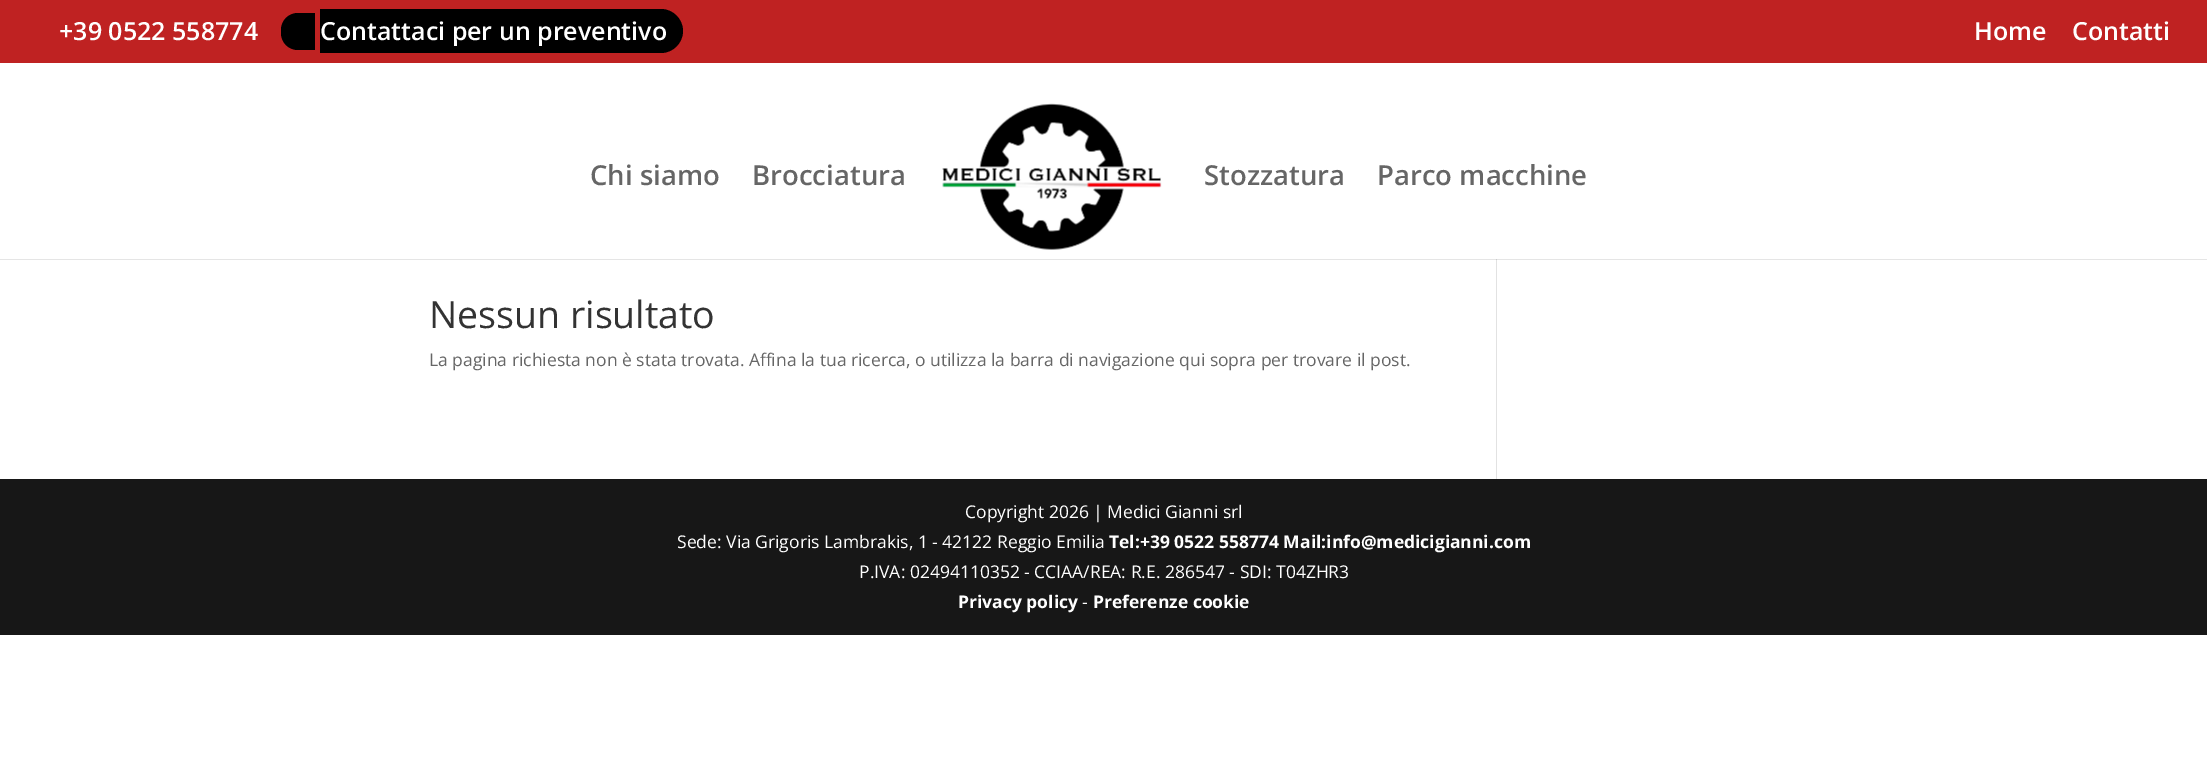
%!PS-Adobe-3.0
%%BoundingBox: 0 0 2207 759
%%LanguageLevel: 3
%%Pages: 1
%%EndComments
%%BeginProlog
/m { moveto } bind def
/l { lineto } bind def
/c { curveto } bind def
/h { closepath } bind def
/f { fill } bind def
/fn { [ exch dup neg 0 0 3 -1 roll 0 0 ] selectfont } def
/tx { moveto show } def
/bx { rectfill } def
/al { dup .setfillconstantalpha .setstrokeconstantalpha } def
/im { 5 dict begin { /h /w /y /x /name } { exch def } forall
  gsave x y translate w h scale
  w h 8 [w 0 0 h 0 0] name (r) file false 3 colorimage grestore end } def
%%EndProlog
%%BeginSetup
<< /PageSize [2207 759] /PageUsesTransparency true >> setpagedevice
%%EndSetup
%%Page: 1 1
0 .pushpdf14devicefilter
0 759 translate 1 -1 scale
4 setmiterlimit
1 setgray
0 0 2207 759 bx
0.749 0.133 0.133 setrgbcolor
0 0 2207 63 bx
/OpenSans-SemiBold 25 fn
1 setgray
(+39 0522 558774) 59 40 tx
0 setgray
320 9 m 661 9 l 673 9 683 19 683 31 c 683 43 673 53 661 53 c 320 53 l h f
1 setgray
(Contattaci per un preventivo) 320 40 tx
0 setgray
298 13 m 315 13 l 315 50 l 298 50 l 288.5 50 281 42.5 281 33 c 281 30 l 281 20.5 288.5 13 298 13 c h f
1 setgray
(Home) 1974 40 tx
(Contatti) 2072 40 tx
0.886 setgray
1496 259 1 220 bx
0.1 al
0 setgray
0 259 m 0 260 l 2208 260 l 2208 64 l 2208 259 l h f
/OpenSans-SemiBold 27.5 fn
1 al
0.4 setgray
(Chi siamo) 590 185 tx
(Brocciatura) 752 185 tx
(image0.raw) 942 103 220 147 im
(Stozzatura) 1204 185 tx
(Parco macchine) 1377 185 tx
/OpenSans-Regular 37.5 fn
0.2 setgray
(Nessun risultato) 429 328 tx
/OpenSans-Regular 17.5 fn
0.4 setgray
(La pagina richiesta non è stata trovata. Affina la tua ricerca, o utilizza la barra di navigazione qui sopra per trovare il post.) 429 366 tx
0.09 setgray
0 479 2207 156 bx
1 setgray
(Copyright 2026 | Medici Gianni srl) 965 518 tx
(Sede: Via Grigoris Lambrakis, 1 - 42122 Reggio Emilia) 677 548 tx
/OpenSans-Bold 17.5 fn
(Tel:+39 0522 558774 Mail:info@medicigianni.com) 1109 548 tx
/OpenSans-Regular 17.5 fn
(P.IVA: 02494110352 - CCIAA/REA: R.E. 286547 - SDI: T04ZHR3) 859 578 tx
/OpenSans-Bold 17.5 fn
(Privacy policy) 958 608 tx
/OpenSans-Regular 17.5 fn
(-) 1082 608 tx
/OpenSans-Bold 17.5 fn
(Preferenze cookie) 1093 608 tx
.poppdf14devicefilter showpage
%%EOF
